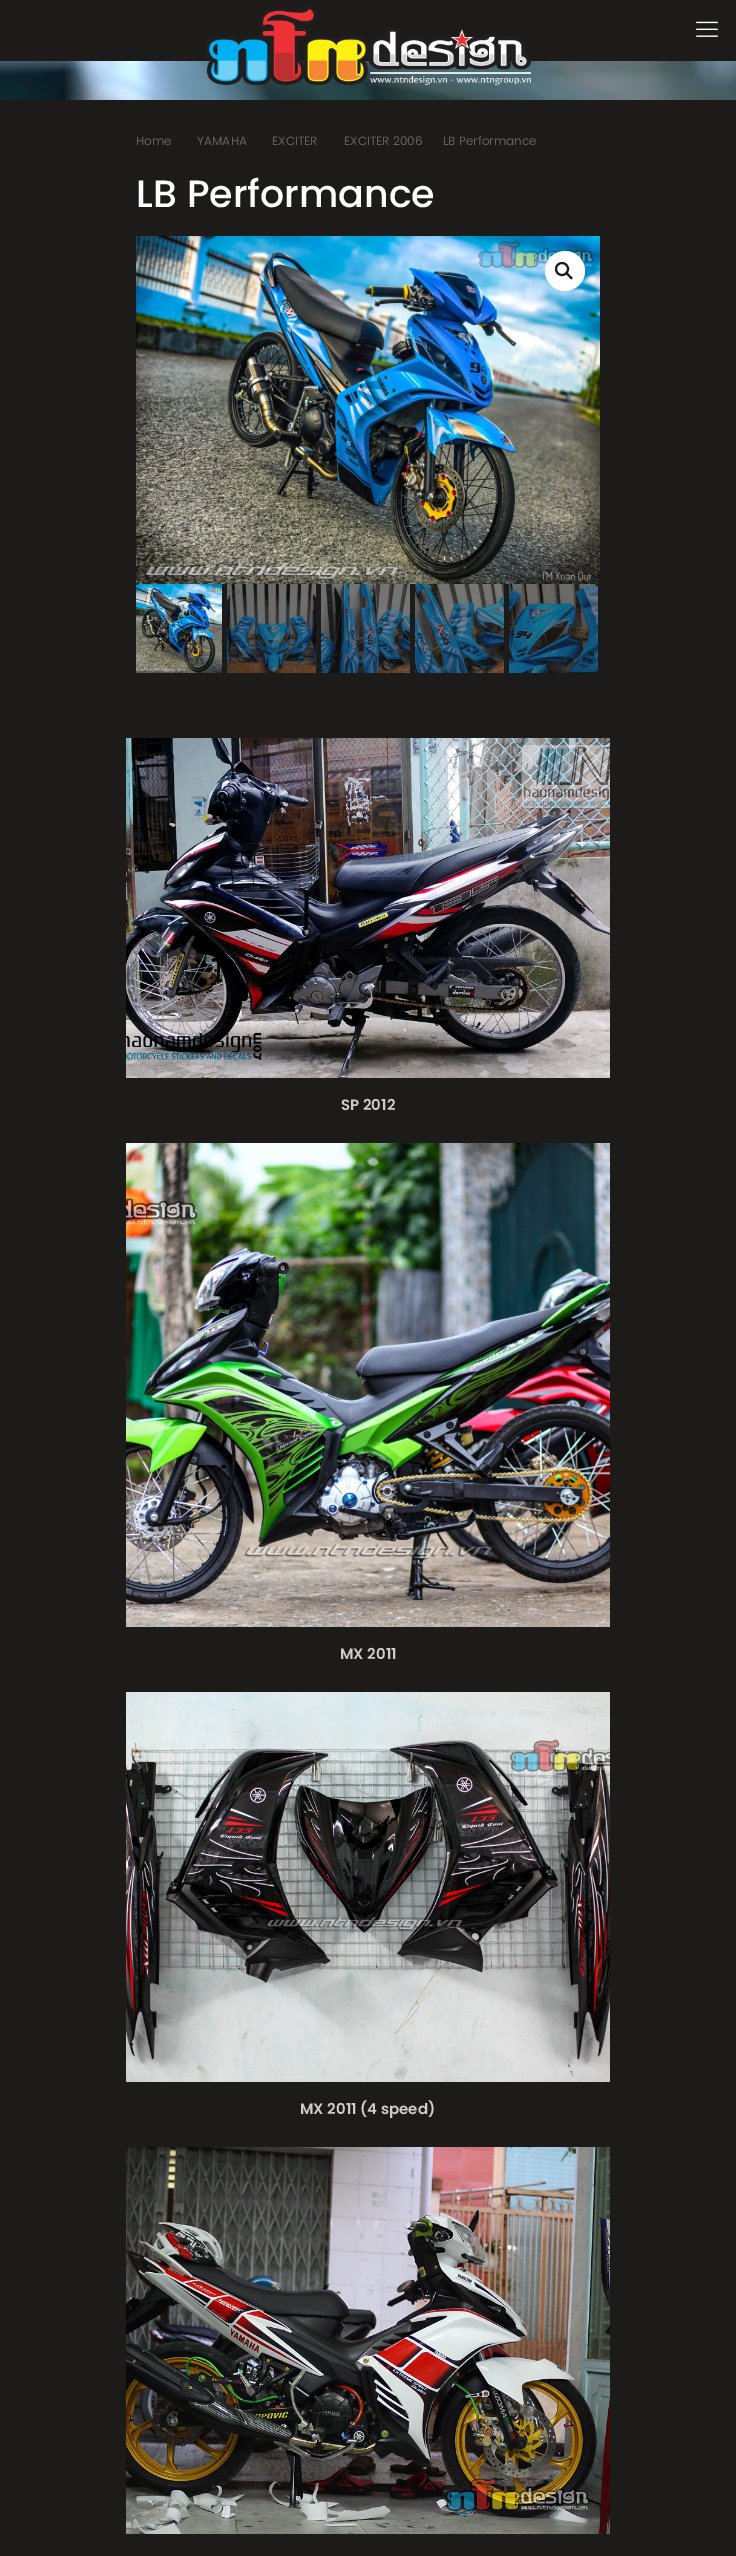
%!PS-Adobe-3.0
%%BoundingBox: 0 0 736 2556
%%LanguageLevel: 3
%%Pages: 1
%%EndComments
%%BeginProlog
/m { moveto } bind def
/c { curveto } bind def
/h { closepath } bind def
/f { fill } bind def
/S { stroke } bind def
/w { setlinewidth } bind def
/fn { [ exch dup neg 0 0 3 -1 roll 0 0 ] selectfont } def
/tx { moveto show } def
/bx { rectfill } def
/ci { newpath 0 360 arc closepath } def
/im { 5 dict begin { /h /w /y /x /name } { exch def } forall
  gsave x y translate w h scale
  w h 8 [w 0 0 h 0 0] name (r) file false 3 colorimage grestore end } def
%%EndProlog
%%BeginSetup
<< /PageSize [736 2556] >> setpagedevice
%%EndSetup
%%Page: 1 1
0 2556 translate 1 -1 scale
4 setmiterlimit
0.11 0.106 0.098 setrgbcolor
0 0 736 2556 bx
(image0.raw) 0 61 736 39 im
(image1.raw) 205 5 326 80 im
(image2.raw) 696 21 22 16 im
/Poppins-Regular 12 fn
0.384 setgray
(Home) 136 145 tx
(YAMAHA) 197 145 tx
(EXCITER) 272 145 tx
(EXCITER 2006) 344 145 tx
(LB Performance) 443 145 tx
/Poppins-Medium 38 fn
1 setgray
(LB Performance) 136 207 tx
(image3.raw) 136 236 464 348 im
565 271 20 ci f
0.086 0.098 0.133 setrgbcolor
2 w
562 269 6 ci S
566.5 273 m 567.5 272 569.5 274.5 570 275.5 c 570.5 276 573.5 277.5 572 279 c 571 280 569 277.5 568.5 276.5 c 568 276 565.5 274.5 566.5 273 c h f
(image4.raw) 136 584 86 89 im
(image5.raw) 227 584 89 89 im
(image6.raw) 321 584 89 89 im
(image7.raw) 415 584 89 89 im
(image8.raw) 509 584 89 89 im
(image9.raw) 126 738 484 340 im
/Poppins-SemiBold 15 fn
0.808 0.804 0.804 setrgbcolor
(SP 2012) 341 1110 tx
(image10.raw) 126 1143 484 484 im
(MX 2011) 340 1659 tx
(image11.raw) 126 1692 484 390 im
(MX 2011 \(4 speed\)) 300 2114 tx
(image12.raw) 126 2147 484 387 im
showpage
%%EOF
